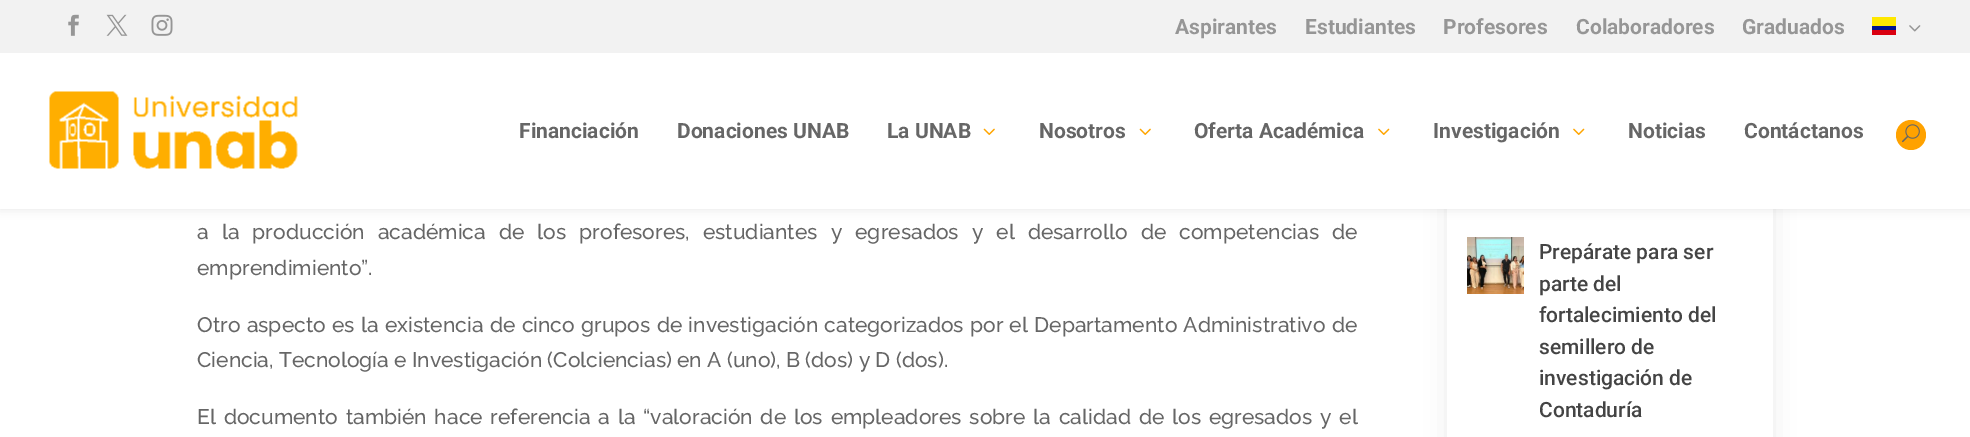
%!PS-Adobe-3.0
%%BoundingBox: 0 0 1970 437
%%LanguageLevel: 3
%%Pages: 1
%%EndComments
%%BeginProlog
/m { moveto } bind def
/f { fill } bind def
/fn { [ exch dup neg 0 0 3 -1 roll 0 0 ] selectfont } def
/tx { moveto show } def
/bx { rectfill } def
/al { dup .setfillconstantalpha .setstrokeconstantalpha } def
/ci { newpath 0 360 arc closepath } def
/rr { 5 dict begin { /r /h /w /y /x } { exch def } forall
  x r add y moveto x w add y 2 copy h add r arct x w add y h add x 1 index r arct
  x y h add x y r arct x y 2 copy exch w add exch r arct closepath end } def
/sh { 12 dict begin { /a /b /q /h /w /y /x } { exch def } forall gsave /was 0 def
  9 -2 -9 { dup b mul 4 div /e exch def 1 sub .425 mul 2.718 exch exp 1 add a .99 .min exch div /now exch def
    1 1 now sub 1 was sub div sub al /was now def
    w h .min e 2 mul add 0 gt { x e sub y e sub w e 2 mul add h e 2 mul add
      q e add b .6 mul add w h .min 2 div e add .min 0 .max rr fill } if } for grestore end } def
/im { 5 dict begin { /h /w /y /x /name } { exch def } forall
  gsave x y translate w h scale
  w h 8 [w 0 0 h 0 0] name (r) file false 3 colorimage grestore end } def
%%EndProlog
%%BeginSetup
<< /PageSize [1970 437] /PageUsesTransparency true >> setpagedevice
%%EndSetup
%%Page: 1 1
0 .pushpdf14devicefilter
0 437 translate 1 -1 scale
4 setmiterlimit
1 setgray
0 0 1970 437 bx
0 setgray
1454 -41 312 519 0 13.5 0.13 sh
1 setgray
1447 209 326 228 bx
0 setgray
0 53 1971 156 0 5 0.1 sh
0.949 setgray
0 0 1970 53 bx
(image0.raw) 68 14 11 22 im
(image1.raw) 106 14 22 22 im
(image2.raw) 151 14 22 22 im
/Roboto-Bold 21 fn
0.588 setgray
(Aspirantes) 1175 34 tx
(Estudiantes) 1305 34 tx
(Profesores) 1443 34 tx
(Colaboradores) 1576 34 tx
(Graduados) 1742 34 tx
1 0.91 0 setrgbcolor
1872 17 24 9 bx
0 0.078 0.557 setrgbcolor
1872 26 24 4 bx
(image3.raw) 1909 25 12 7 im
0.855 0 0.063 setrgbcolor
1872 30 24 5 bx
1 setgray
0 53 1970 156 bx
(image4.raw) 49 91 249 78 im
0.4 setgray
(Financiación) 519 138 tx
(Donaciones UNAB) 677 138 tx
(La UNAB) 887 138 tx
(image5.raw) 983 128 12 7 im
(Nosotros) 1039 138 tx
(image5.raw) 1139 128 12 7 im
(Oferta Académica) 1194 138 tx
(image6.raw) 1378 128 12 7 im
(Investigación) 1433 138 tx
(image6.raw) 1573 128 12 7 im
(Noticias) 1628 138 tx
(Contáctanos) 1744 138 tx
1 0.635 0 setrgbcolor
1911 135 15 ci f
(image7.raw) 1902 124 18 19 im
/Raleway-Medium 21 fn
0.4 setgray
197 239 m 7.75 0 32 (a la producción académica de los profesores, estudiantes y egresados y el desarrollo de competencias de) widthshow
(emprendimiento”.) 197 275 tx
197 332 m 1 0 32 (Otro aspecto es la existencia de cinco grupos de investigación categorizados por el Departamento Administrativo de) widthshow
(Ciencia, Tecnología e Investigación \(Colciencias\) en A \(uno\), B \(dos\) y D \(dos\).) 197 367 tx
197 424 m 2.5 0 32 (El documento también hace referencia a la “valoración de los empleadores sobre la calidad de los egresados y el) widthshow
(image8.raw) 1467 237 57 57 im
/Roboto-Medium 21 fn
0.267 setgray
(Prepárate para ser) 1539 259 tx
(parte del) 1539 291 tx
(fortalecimiento del) 1539 322 tx
(semillero de) 1539 354 tx
(investigación de) 1539 385 tx
(Contaduría) 1539 417 tx
.poppdf14devicefilter showpage
%%EOF
